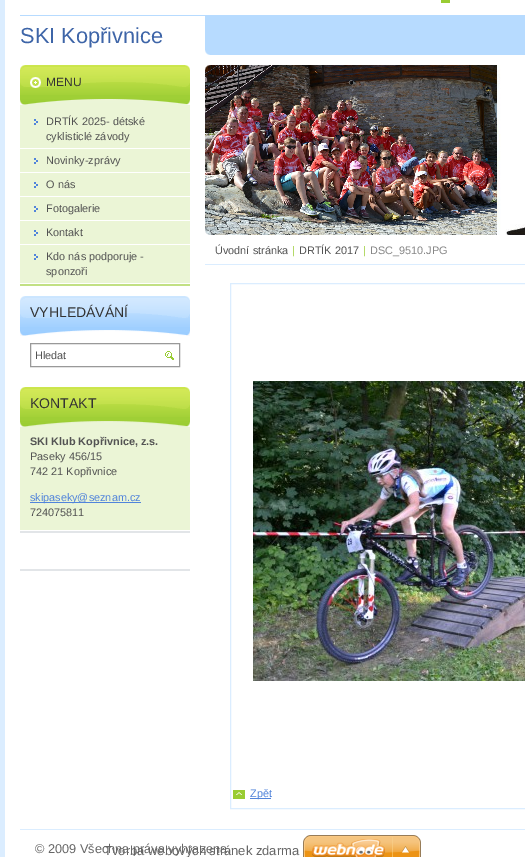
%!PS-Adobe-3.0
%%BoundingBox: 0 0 525 857
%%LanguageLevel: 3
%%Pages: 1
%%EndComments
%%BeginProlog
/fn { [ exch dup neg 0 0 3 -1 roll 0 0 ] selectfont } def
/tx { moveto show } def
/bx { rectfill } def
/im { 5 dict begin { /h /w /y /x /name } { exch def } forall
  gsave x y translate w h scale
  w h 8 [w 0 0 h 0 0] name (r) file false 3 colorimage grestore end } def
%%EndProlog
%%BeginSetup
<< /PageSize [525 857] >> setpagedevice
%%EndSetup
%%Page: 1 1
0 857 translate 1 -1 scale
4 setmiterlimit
1 setgray
0 0 525 857 bx
0.859 0.929 1 setrgbcolor
0 0 5 857 bx
0.6 0.8 0.2 setrgbcolor
441 0 9 3 bx
(image0.raw) 20 15 505 6 im
/LiberationSans-Regular 21.75 fn
0.243 0.396 0.659 setrgbcolor
(SKI Kopřivnice) 20 43 tx
0.718 0.859 1 setrgbcolor
205 21 320 34 bx
(image1.raw) 205 50 5 5 im
0.761 0.878 0.518 setrgbcolor
20 284 170 2 bx
0.922 0.961 0.839 setrgbcolor
20 105 170 178 bx
0.624 0.812 0.212 setrgbcolor
20 95 170 4 bx
(image2.raw) 20 65 170 30 im
(image3.raw) 20 99 170 6 im
/LiberationSans-Regular 12 fn
0.2 setgray
(MENU) 46 86 tx
(image4.raw) 34 119 4 6 im
1 setgray
20 148 170 1 bx
/LiberationSans-Regular 10.9 fn
0.325 setgray
(DRTÍK 2025- détské) 46 125 tx
(cyklisticlé závody) 46 140 tx
(image4.raw) 34 158 4 6 im
1 setgray
20 172 170 1 bx
0.325 setgray
(Novinky-zprávy) 46 164 tx
(image4.raw) 34 182 4 6 im
1 setgray
20 196 170 1 bx
0.325 setgray
(O nás) 46 188 tx
(image4.raw) 34 206 4 6 im
1 setgray
20 220 170 1 bx
0.325 setgray
(Fotogalerie) 46 212 tx
(image4.raw) 34 230 4 6 im
1 setgray
20 244 170 1 bx
0.325 setgray
(Kontakt) 46 236 tx
(image4.raw) 34 254 4 6 im
(Kdo nás podporuje -) 46 260 tx
(sponzoři) 46 275 tx
0.624 0.812 1 setrgbcolor
20 327 170 4 bx
(image5.raw) 20 296 170 31 im
(image6.raw) 20 330 170 6 im
/LiberationSans-Regular 14 fn
0.2 setgray
(VYHLEDÁVÁNÍ) 30 317 tx
0.6 setgray
30.5 343.5 149 23 rectstroke
/LiberationSans-Regular 10.9 fn
0.325 setgray
(Hledat) 35 359 tx
(image7.raw) 165 351 9 9 im
0.886 0.898 0.91 setrgbcolor
20 531 170 2 bx
0.922 0.961 0.839 setrgbcolor
20 427 170 103 bx
0.624 0.812 0.212 setrgbcolor
20 417 170 5 bx
(image8.raw) 20 387 170 30 im
(image9.raw) 20 421 170 6 im
/LiberationSans-Regular 14 fn
0.2 setgray
(KONTAKT) 30 408 tx
/LiberationSans-Bold 10.9 fn
0.325 setgray
(SKI Klub Kopřivnice, z.s.) 30 445 tx
/LiberationSans-Regular 10.9 fn
(Paseky 456/15) 30 460 tx
(742 21 Kopřivnice) 30 475 tx
0.318 0.518 0.859 setrgbcolor
30 502 42 1 bx
(skipasek) 30 501 tx
72 502 69 1 bx
(y@seznam.cz) 72 501 tx
0.325 setgray
(724075811) 30 516 tx
0.886 0.898 0.91 setrgbcolor
20 569 170 2 bx
(image10.raw) 205 65 320 170 im
(image11.raw) 205 65 5 170 im
0.859 0.929 1 setrgbcolor
205 264 320 1 bx
0.325 setgray
(Úvodní stránka) 215 254 tx
0.6 0.8 0.2 setrgbcolor
(|) 292 254 tx
0.325 setgray
(DRTÍK 2017) 299 254 tx
0.6 0.8 0.2 setrgbcolor
(|) 363 254 tx
0.529 setgray
(DSC_9510.JPG) 370 254 tx
0.859 0.929 1 setrgbcolor
230.5 283.5 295 525 rectstroke
(image12.raw) 253 381 272 300 im
(image13.raw) 233 790 12 9 im
0.318 0.518 0.859 setrgbcolor
250 798 21 1 bx
(Zpět) 250 797 tx
0.859 0.929 1 setrgbcolor
20 829 505 1 bx
/LiberationSans-Regular 12.75 fn
0.4 setgray
(© 2009 Všechna práva vyhrazena.) 35 853 tx
/LiberationSans-Regular 13 fn
(Tvorba webových stránek zdarma) 104 855 tx
(image14.raw) 303 835 118 22 im
showpage
%%EOF
